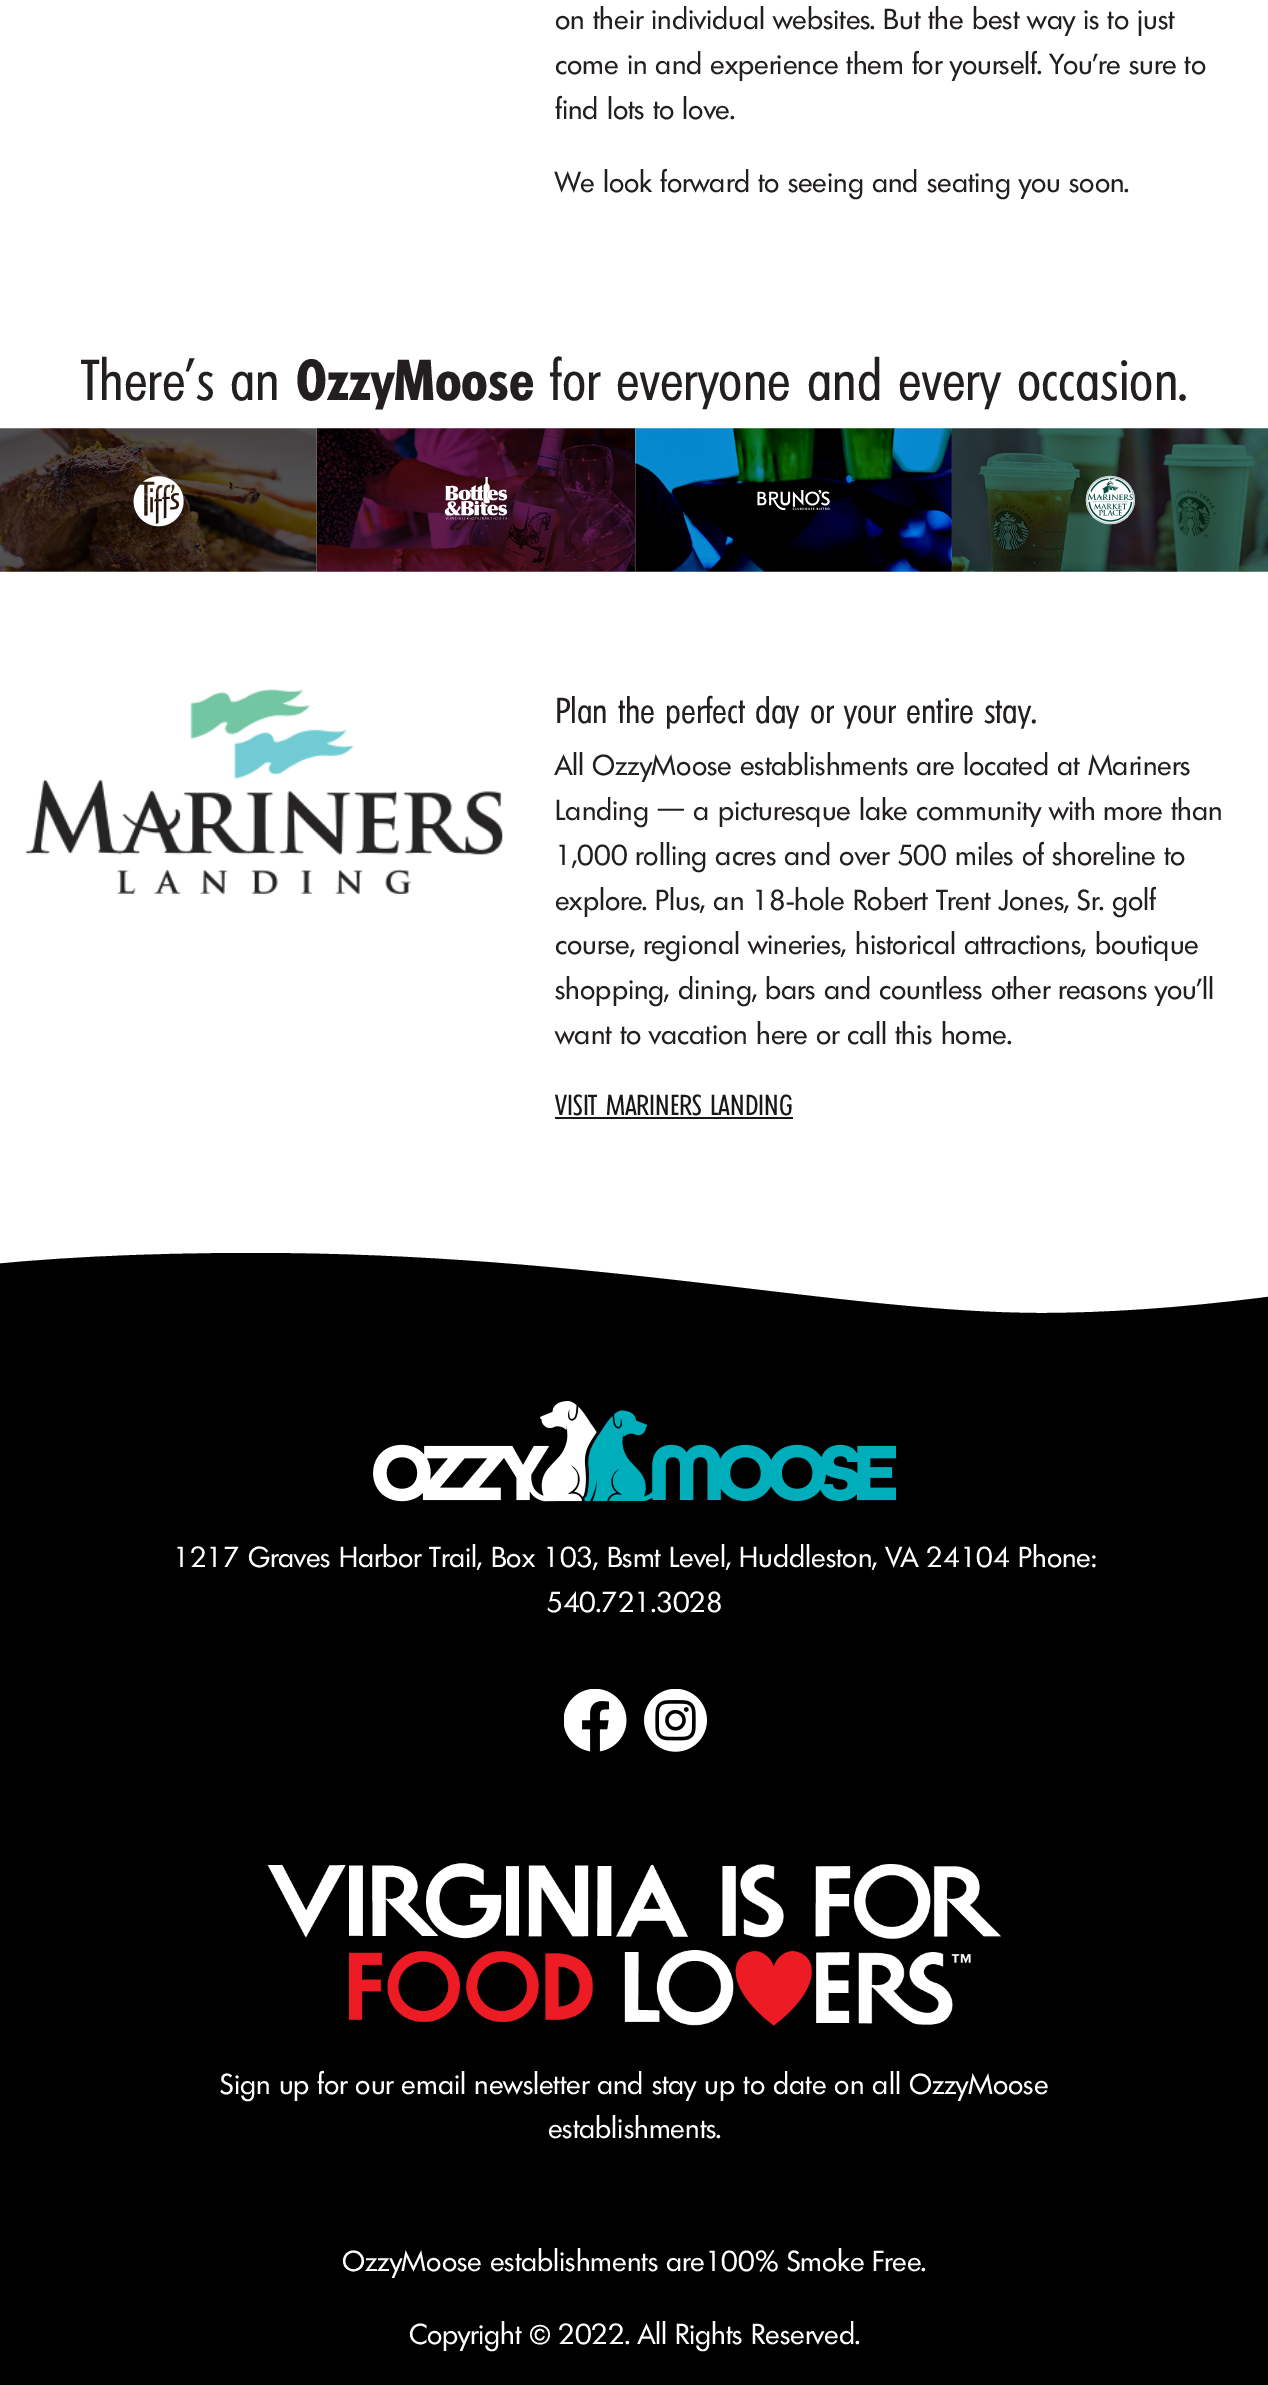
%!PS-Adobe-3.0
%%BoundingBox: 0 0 1268 2385
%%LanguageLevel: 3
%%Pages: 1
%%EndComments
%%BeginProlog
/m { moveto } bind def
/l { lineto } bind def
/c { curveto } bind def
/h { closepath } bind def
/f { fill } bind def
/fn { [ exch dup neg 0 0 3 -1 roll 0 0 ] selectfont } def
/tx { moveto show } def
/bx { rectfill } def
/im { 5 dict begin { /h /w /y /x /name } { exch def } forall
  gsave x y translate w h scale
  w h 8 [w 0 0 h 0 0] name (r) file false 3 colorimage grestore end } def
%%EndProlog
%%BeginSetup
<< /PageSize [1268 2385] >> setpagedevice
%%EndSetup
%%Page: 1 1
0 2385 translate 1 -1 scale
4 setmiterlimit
1 setgray
0 0 1268 2385 bx
/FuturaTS-Regular 28 fn
0.137 0.122 0.125 setrgbcolor
(on their individual websites. But the best way is to just) 555 29 tx
(come in and experience them for yourself. You’re sure to) 555 74 tx
(find lots to love.) 555 119 tx
(We look forward to seeing and seating you soon.) 555 192 tx
/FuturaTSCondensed-Regular 56 fn
(There’s an) 81 400 tx
/FuturaTSCondensed-SemiBold 56 fn
(OzzyMoose) 296 400 tx
/FuturaTSCondensed-Regular 56 fn
(for everyone and every occasion.) 550 400 tx
(image0.raw) 0 428 317 144 im
(image1.raw) 133 476 51 51 im
(image2.raw) 316 428 320 144 im
(image3.raw) 444 477 64 43 im
(image4.raw) 635 428 317 144 im
(image5.raw) 757 490 73 20 im
(image6.raw) 952 428 316 144 im
(image7.raw) 1085 475 50 50 im
(image8.raw) 26 689 477 205 im
/FuturaTSCondensed-Regular 35 fn
(Plan the perfect day or your entire stay.) 555 723 tx
/FuturaTS-Regular 28 fn
(All OzzyMoose establishments are located at Mariners) 555 775 tx
(Landing — a picturesque lake community with more than) 555 820 tx
(1,000 rolling acres and over 500 miles of shoreline to) 555 865 tx
(explore. Plus, an 18-hole Robert Trent Jones, Sr. golf) 555 910 tx
(course, regional wineries, historical attractions, boutique) 555 954 tx
(shopping, dining, bars and countless other reasons you’ll) 555 999 tx
(want to vacation here or call this home.) 555 1044 tx
/FuturaTSCondensed-Regular 28 fn
0.094 setgray
(VISIT MARINERS LANDING) 555 1115 tx
555 1117 238 2 bx
0 setgray
-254 1313 m -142 1273 27 1253 254 1253 c 593 1253 844 1313 1041 1313 c 1172 1313 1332 1293 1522 1253 c 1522 1358 l -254 1358 l h f
0 1358 1268 1027 bx
(image9.raw) 373 1401 523 101 im
/FuturaTS-Regular 28 fn
1 setgray
(1217 Graves Harbor Trail, Box 103, Bsmt Level, Huddleston, VA 24104 Phone:) 173 1567 tx
(540.721.3028) 546 1612 tx
(image10.raw) 564 1689 63 63 im
(image11.raw) 644 1689 63 63 im
(image12.raw) 267 1863 734 163 im
(Sign up for our email newsletter and stay up to date on all OzzyMoose) 220 2094 tx
(establishments.) 548 2138 tx
(OzzyMoose establishments are100% Smoke Free.) 342 2271 tx
(Copyright © 2022. All Rights Reserved.) 409 2344 tx
showpage
%%EOF
